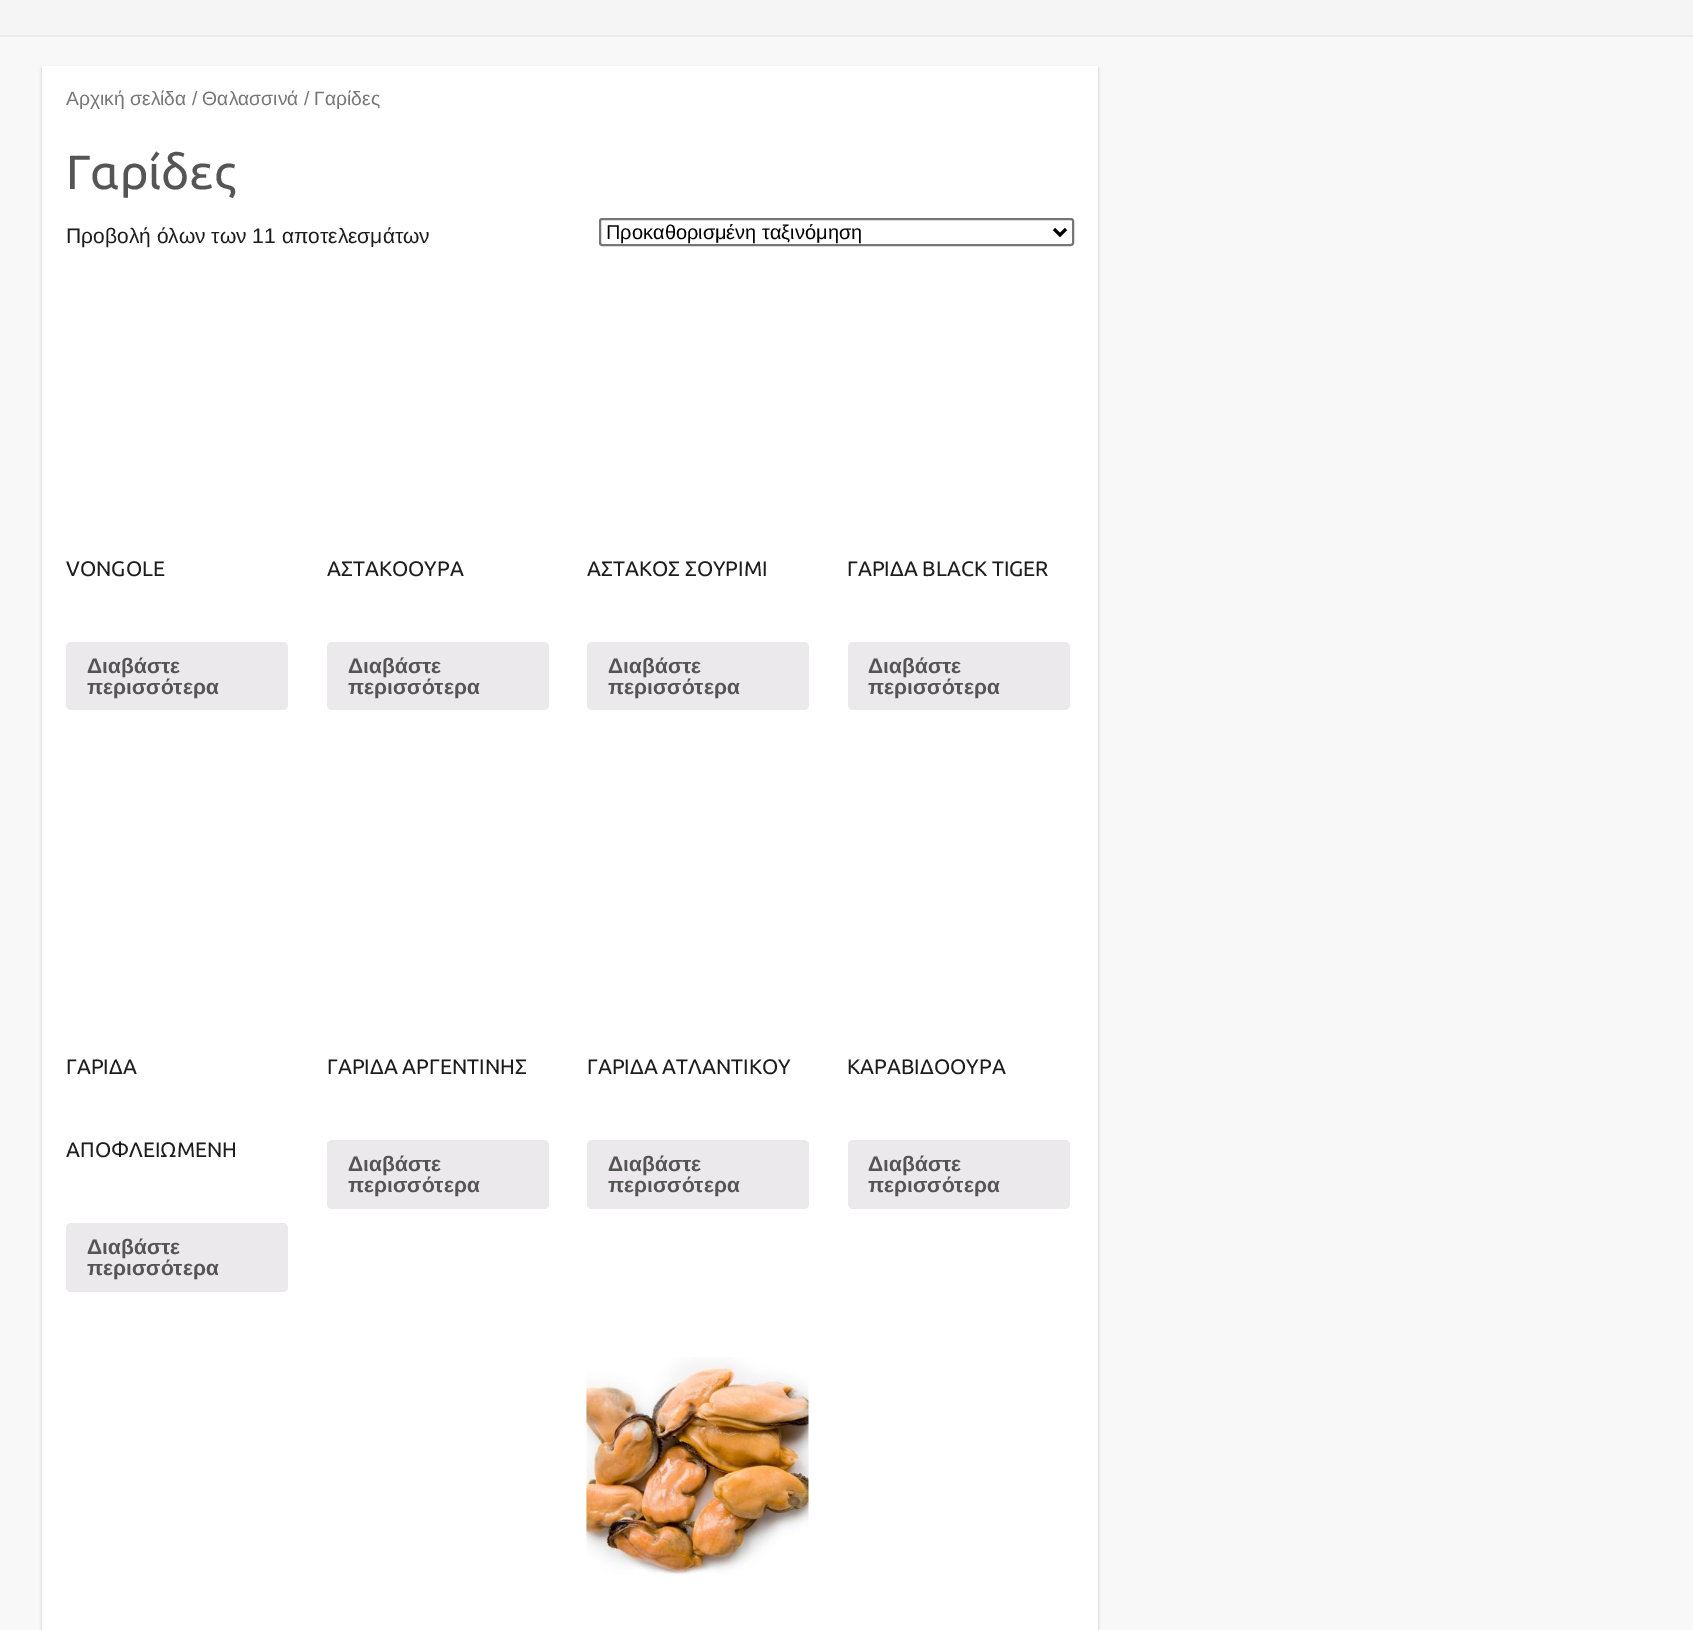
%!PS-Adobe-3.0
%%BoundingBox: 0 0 1693 1630
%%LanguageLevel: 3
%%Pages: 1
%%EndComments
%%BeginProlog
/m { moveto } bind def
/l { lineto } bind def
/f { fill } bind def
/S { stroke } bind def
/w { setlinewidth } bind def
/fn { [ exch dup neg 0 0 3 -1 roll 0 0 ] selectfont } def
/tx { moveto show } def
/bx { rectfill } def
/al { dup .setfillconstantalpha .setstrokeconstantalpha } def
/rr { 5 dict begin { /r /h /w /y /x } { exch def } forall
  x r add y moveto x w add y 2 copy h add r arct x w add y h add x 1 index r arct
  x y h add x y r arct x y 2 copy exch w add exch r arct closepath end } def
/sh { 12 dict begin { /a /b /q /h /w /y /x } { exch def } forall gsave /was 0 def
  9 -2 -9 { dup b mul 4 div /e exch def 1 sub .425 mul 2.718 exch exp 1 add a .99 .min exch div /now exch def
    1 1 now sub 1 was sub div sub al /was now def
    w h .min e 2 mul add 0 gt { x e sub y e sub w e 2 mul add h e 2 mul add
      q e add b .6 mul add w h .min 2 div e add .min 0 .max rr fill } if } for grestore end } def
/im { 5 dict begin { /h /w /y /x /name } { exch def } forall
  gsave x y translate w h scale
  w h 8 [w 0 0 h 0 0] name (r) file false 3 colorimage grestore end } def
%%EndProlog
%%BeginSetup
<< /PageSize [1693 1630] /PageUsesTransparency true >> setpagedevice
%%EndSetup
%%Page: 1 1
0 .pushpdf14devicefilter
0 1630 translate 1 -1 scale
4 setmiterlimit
0.973 setgray
0 0 1693 1630 bx
0.961 setgray
0 0 1693 35 bx
0.918 setgray
0 35 1693 2 bx
0 setgray
42 68 1056 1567 0 1.5 0.2 sh
1 setgray
42 66 1056 1564 bx
/LiberationSans-Regular 19.3 fn
0.463 setgray
(Αρχική σελίδα / Θαλασσινά / Γαρίδες) 66 105 tx
/Ubuntu-Regular 48 fn
0.333 setgray
(Γαρίδες) 66 189 tx
/LiberationSans-Regular 21 fn
0.114 setgray
(Προβολή όλων των 11 αποτελεσμάτων) 66 243 tx
0.463 setgray
2 w
600 219 473 26 2 rr S
0 setgray
3 w
1054 229 m 1060 235 l 1066 229 l S
/LiberationSans-Regular 20 fn
(Προκαθορισμένη ταξινόμηση) 606 239 tx
/Ubuntu-Regular 21 fn
0.114 setgray
(VONGOLE) 66 576 tx
0.922 0.914 0.922 setrgbcolor
66 642 222 68 5 rr f
/LiberationSans-Bold 21 fn
0.333 setgray
(Διαβάστε) 87 673 tx
(περισσότερα) 87 694 tx
/Ubuntu-Regular 21 fn
0.114 setgray
(ΑΣΤΑΚΟΟΥΡΑ) 327 576 tx
0.922 0.914 0.922 setrgbcolor
327 642 222 68 5 rr f
/LiberationSans-Bold 21 fn
0.333 setgray
(Διαβάστε) 348 673 tx
(περισσότερα) 348 694 tx
/Ubuntu-Regular 21 fn
0.114 setgray
(ΑΣΤΑΚΟΣ ΣΟΥΡΙΜΙ) 587 576 tx
0.922 0.914 0.922 setrgbcolor
587 642 222 68 5 rr f
/LiberationSans-Bold 21 fn
0.333 setgray
(Διαβάστε) 608 673 tx
(περισσότερα) 608 694 tx
/Ubuntu-Regular 21 fn
0.114 setgray
(ΓΑΡΙΔΑ BLACK TIGER) 847 576 tx
0.922 0.914 0.922 setrgbcolor
848 642 222 68 5 rr f
/LiberationSans-Bold 21 fn
0.333 setgray
(Διαβάστε) 868 673 tx
(περισσότερα) 868 694 tx
/Ubuntu-Regular 21 fn
0.114 setgray
(ΓΑΡΙΔΑ) 66 1074 tx
(ΑΠΟΦΛΕΙΩΜΕΝΗ) 66 1157 tx
0.922 0.914 0.922 setrgbcolor
66 1223 222 69 5 rr f
/LiberationSans-Bold 21 fn
0.333 setgray
(Διαβάστε) 87 1254 tx
(περισσότερα) 87 1275 tx
/Ubuntu-Regular 21 fn
0.114 setgray
(ΓΑΡΙΔΑ ΑΡΓΕΝΤΙΝΗΣ) 327 1074 tx
0.922 0.914 0.922 setrgbcolor
327 1140 222 69 5 rr f
/LiberationSans-Bold 21 fn
0.333 setgray
(Διαβάστε) 348 1171 tx
(περισσότερα) 348 1192 tx
/Ubuntu-Regular 21 fn
0.114 setgray
(ΓΑΡΙΔΑ ΑΤΛΑΝΤΙΚΟΥ) 587 1074 tx
0.922 0.914 0.922 setrgbcolor
587 1140 222 69 5 rr f
/LiberationSans-Bold 21 fn
0.333 setgray
(Διαβάστε) 608 1171 tx
(περισσότερα) 608 1192 tx
/Ubuntu-Regular 21 fn
0.114 setgray
(ΚΑΡΑΒΙΔΟΟΥΡΑ) 847 1074 tx
0.922 0.914 0.922 setrgbcolor
848 1140 222 69 5 rr f
/LiberationSans-Bold 21 fn
0.333 setgray
(Διαβάστε) 868 1171 tx
(περισσότερα) 868 1192 tx
(image0.raw) 586 1357 223 218 im
.poppdf14devicefilter showpage
%%EOF
